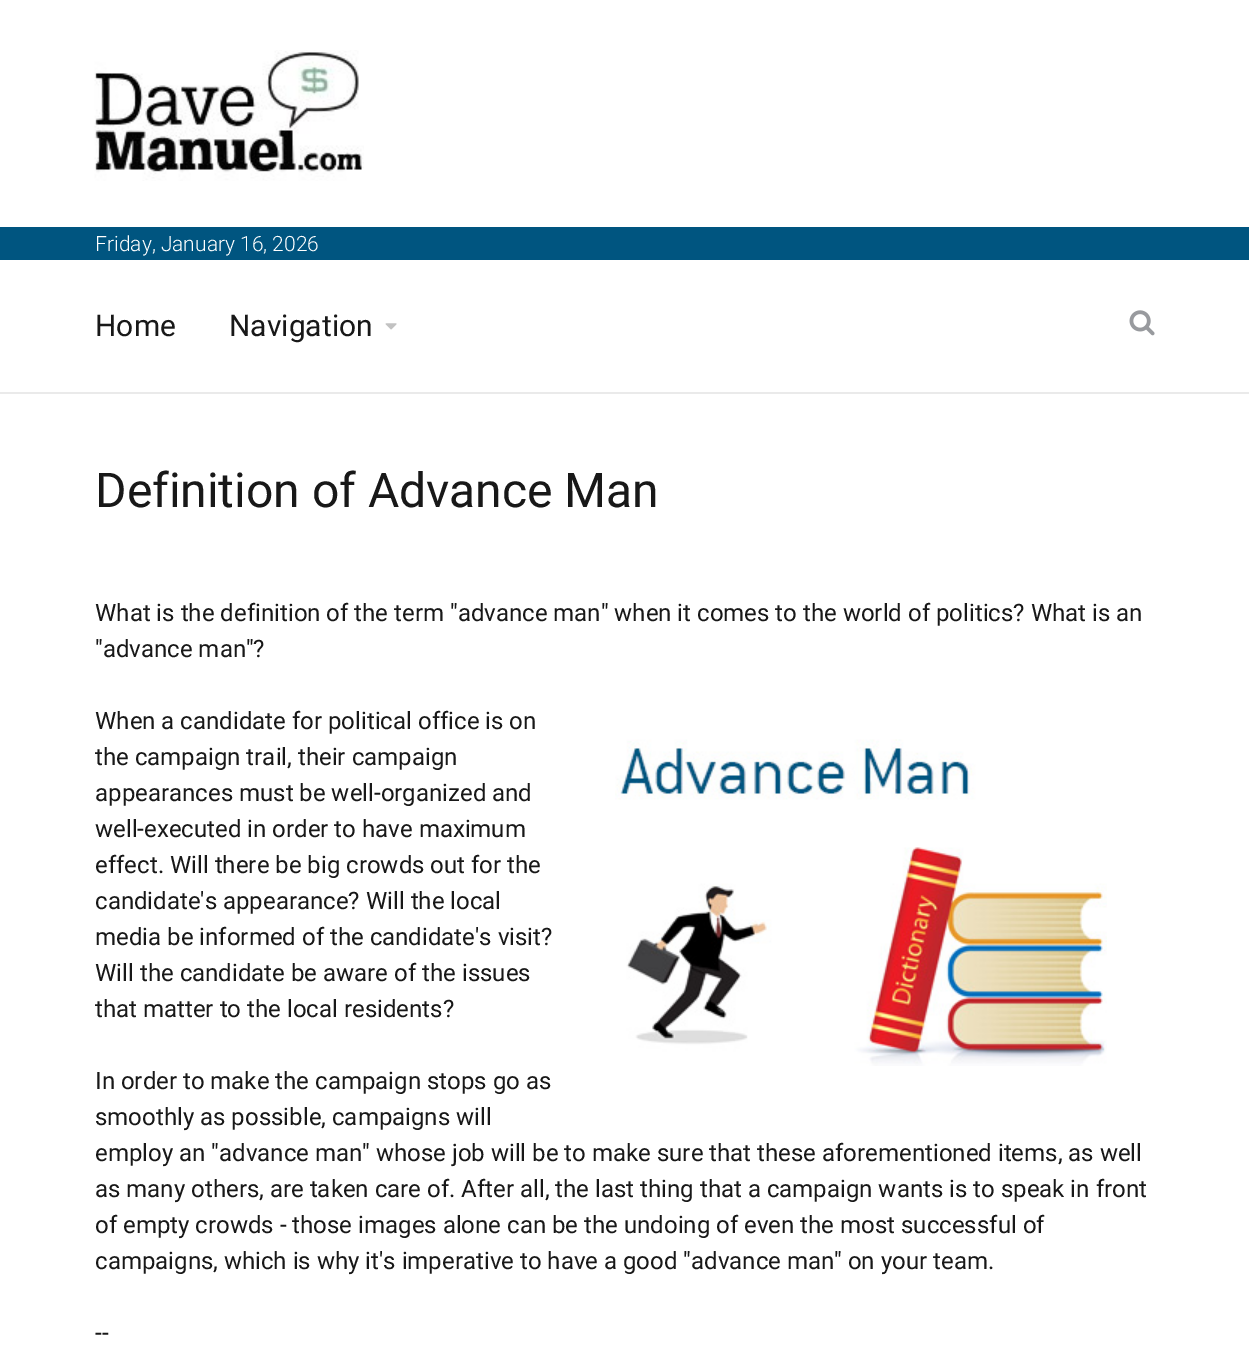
%!PS-Adobe-3.0
%%BoundingBox: 0 0 1249 1372
%%LanguageLevel: 3
%%Pages: 1
%%EndComments
%%BeginProlog
/fn { [ exch dup neg 0 0 3 -1 roll 0 0 ] selectfont } def
/tx { moveto show } def
/bx { rectfill } def
/im { 5 dict begin { /h /w /y /x /name } { exch def } forall
  gsave x y translate w h scale
  w h 8 [w 0 0 h 0 0] name (r) file false 3 colorimage grestore end } def
%%EndProlog
%%BeginSetup
<< /PageSize [1249 1372] >> setpagedevice
%%EndSetup
%%Page: 1 1
0 1372 translate 1 -1 scale
4 setmiterlimit
1 setgray
0 0 1249 1372 bx
(image0.raw) 94 50 270 131 im
0 0.333 0.502 setrgbcolor
0 227 1249 33 bx
/Roboto-Light 21 fn
1 setgray
(Friday, January 16, 2026) 95 251 tx
0.918 setgray
0 392 1249 2 bx
/Roboto-Regular 30 fn
0.094 setgray
(Home) 95 336 tx
(Navigation) 229 336 tx
(image1.raw) 385 323 12 7 im
(image2.raw) 1129 310 26 26 im
/Roboto-Regular 48 fn
(Definition of Advance Man) 95 507 tx
/Roboto-Regular 24 fn
(What is the definition of the term "advance man" when it comes to the world of politics? What is an) 95 621 tx
("advance man"?) 95 657 tx
(When a candidate for political office is on) 95 729 tx
(the campaign trail, their campaign) 95 765 tx
(image3.raw) 615 739 492 327 im
(appearances must be well-organized and) 95 801 tx
(well-executed in order to have maximum) 95 837 tx
(effect. Will there be big crowds out for the) 95 873 tx
(candidate's appearance? Will the local) 95 909 tx
(media be informed of the candidate's visit?) 95 945 tx
(Will the candidate be aware of the issues) 95 981 tx
(that matter to the local residents?) 95 1017 tx
(In order to make the campaign stops go as) 95 1089 tx
(smoothly as possible, campaigns will) 95 1125 tx
(employ an "advance man" whose job will be to make sure that these aforementioned items, as well) 95 1161 tx
(as many others, are taken care of. After all, the last thing that a campaign wants is to speak in front) 95 1197 tx
(of empty crowds - those images alone can be the undoing of even the most successful of) 95 1233 tx
(campaigns, which is why it's imperative to have a good "advance man" on your team.) 95 1269 tx
(--) 95 1341 tx
showpage
%%EOF
